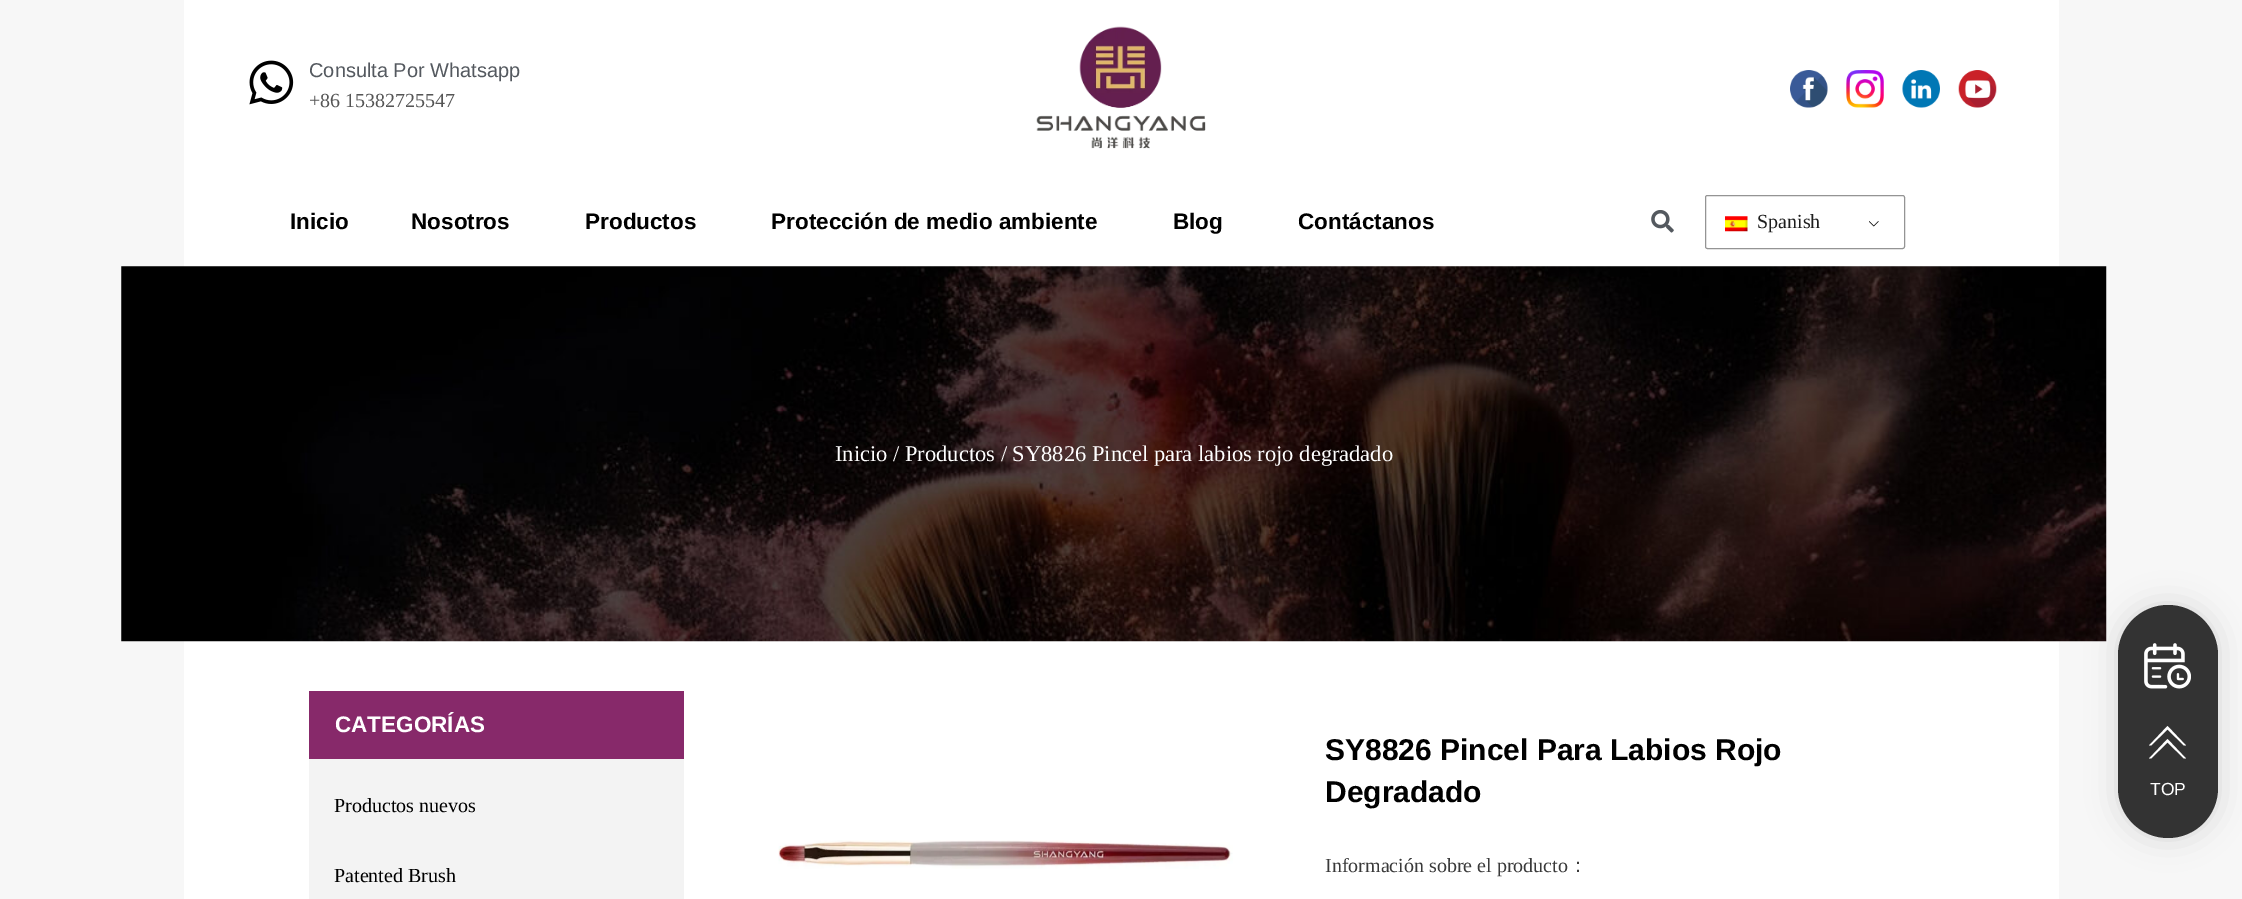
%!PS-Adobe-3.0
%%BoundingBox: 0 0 2242 899
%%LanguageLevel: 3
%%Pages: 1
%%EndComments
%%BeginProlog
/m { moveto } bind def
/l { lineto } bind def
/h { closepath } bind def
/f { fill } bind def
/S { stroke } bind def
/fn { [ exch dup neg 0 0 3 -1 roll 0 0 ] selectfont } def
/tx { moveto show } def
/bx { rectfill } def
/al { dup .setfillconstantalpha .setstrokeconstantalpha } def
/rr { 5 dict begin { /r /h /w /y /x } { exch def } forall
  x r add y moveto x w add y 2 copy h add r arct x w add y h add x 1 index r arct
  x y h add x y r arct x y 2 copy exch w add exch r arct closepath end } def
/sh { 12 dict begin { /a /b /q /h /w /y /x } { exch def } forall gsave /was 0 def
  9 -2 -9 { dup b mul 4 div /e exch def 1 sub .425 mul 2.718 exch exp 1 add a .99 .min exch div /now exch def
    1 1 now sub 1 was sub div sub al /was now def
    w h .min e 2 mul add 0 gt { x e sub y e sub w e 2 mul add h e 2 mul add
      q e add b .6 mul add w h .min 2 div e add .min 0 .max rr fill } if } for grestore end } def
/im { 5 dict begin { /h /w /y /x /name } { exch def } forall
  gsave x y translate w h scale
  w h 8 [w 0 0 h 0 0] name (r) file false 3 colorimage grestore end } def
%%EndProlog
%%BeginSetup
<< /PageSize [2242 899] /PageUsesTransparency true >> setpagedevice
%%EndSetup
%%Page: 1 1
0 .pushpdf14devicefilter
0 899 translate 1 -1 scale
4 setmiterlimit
0.969 setgray
0 0 2242 899 bx
1 setgray
184 0 1875 899 bx
(image0.raw) 249 60 45 45 im
/LiberationSans-Regular 20 fn
0.329 0.349 0.373 setrgbcolor
(Consulta Por Whatsapp) 309 77 tx
/LiberationSerif-Regular 20 fn
0.333 setgray
(+86 15382725547) 309 107 tx
(image1.raw) 1036 26 170 123 im
(image2.raw) 1790 70 38 38 im
(image3.raw) 1846 70 38 38 im
(image4.raw) 1902 70 38 38 im
(image5.raw) 1958 70 39 38 im
/LiberationSans-Bold 22.5 fn
0 setgray
(Inicio) 290 229 tx
(Nosotros) 411 229 tx
(Productos) 585 229 tx
(Protección de medio ambiente) 771 229 tx
(Blog) 1173 229 tx
(Contáctanos) 1298 229 tx
(image6.raw) 1651 210 23 23 im
(image7.raw) 1869 221 10 6 im
0.58 setgray
1705.5 195.5 199 53 2 rr S
(image8.raw) 1725 216 23 16 im
/LiberationSerif-Regular 20 fn
0.118 setgray
(Spanish) 1757 228 tx
(image9.raw) 121 266 1986 376 im
/LiberationSerif-Regular 22.5 fn
1 setgray
(Inicio / Productos / SY8826 Pincel para labios rojo degradado) 835 461 tx
0.529 0.161 0.416 setrgbcolor
309 691 375 68 bx
/LiberationSans-Bold 22.5 fn
1 setgray
(CATEGORÍAS) 335 732 tx
0.953 setgray
309 759 375 140 bx
/LiberationSerif-Regular 20 fn
0 setgray
(Productos nuevos) 334 812 tx
(Patented Brush) 334 882 tx
(image10.raw) 778 840 455 29 im
/LiberationSans-Bold 30 fn
(SY8826 Pincel Para Labios Rojo) 1325 760 tx
(Degradado) 1325 802 tx
/LiberationSerif-Regular 20 fn
0.227 setgray
(Información sobre el producto) 1325 872 tx
/WenQuanYiZenHei-Medium 20 fn
(：) 1568 872 tx
0 setgray
2118 605 100 233 50 15.5 0.14 sh
0.2 setgray
2118 605 100 233 50 rr f
(image11.raw) 2144 643 47 46 im
1 setgray
2149 758.5 m 2167.5 739 l 2186 758.5 l 2184 758.5 l 2167.5 742.5 l 2151 758.5 l h 2149 745.5 m 2167.5 726 l 2186 745.5 l 2184 745.5 l 2167.5 729.5 l 2151 745.5 l h f
/LiberationSans-Regular 17.5 fn
(TOP) 2150 795 tx
.poppdf14devicefilter showpage
%%EOF
